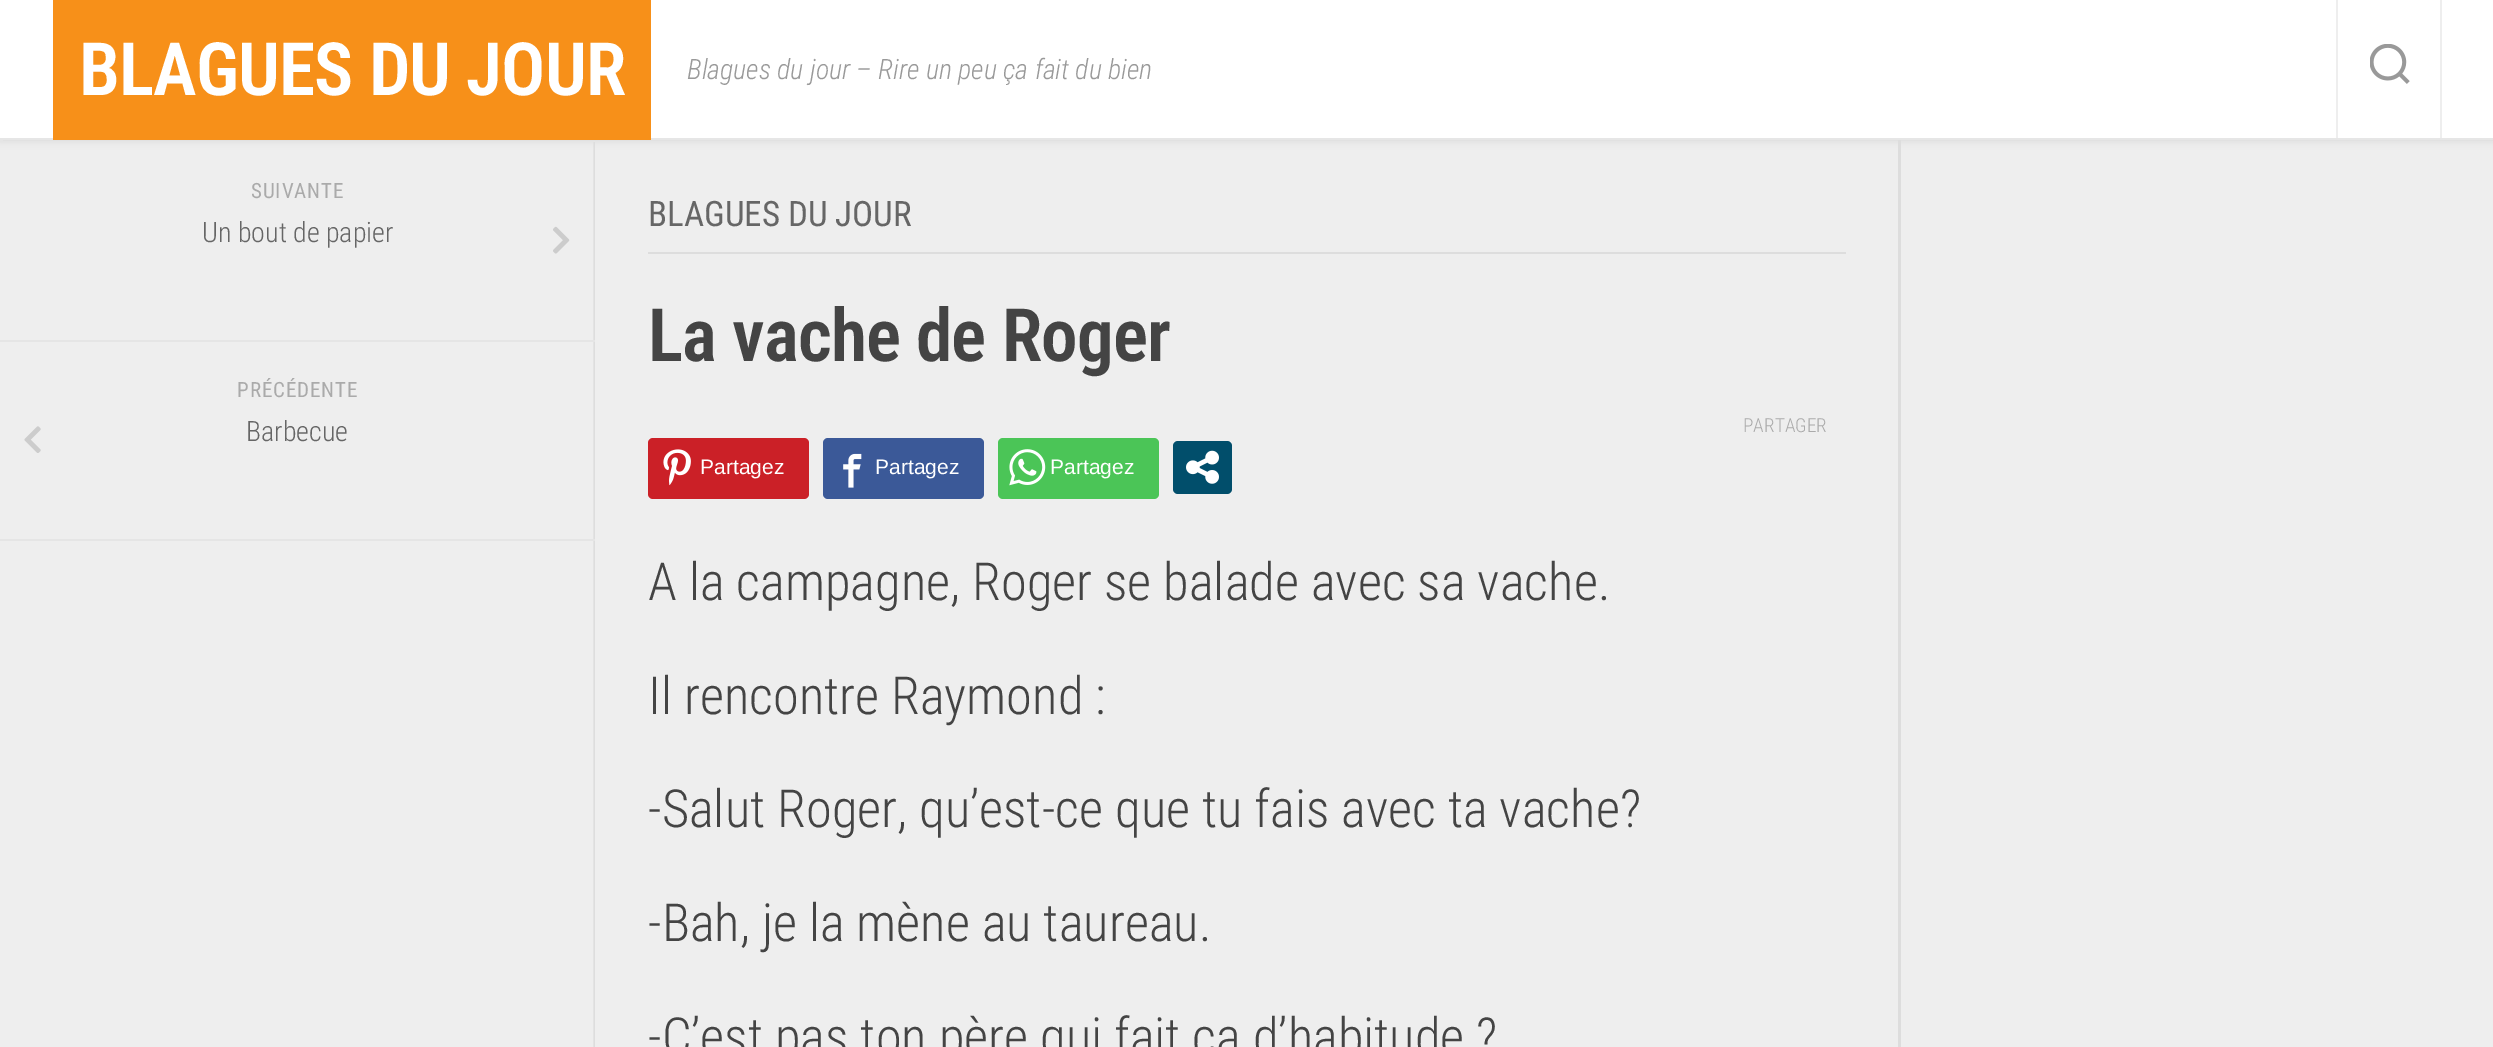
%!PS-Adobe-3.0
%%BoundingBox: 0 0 2493 1047
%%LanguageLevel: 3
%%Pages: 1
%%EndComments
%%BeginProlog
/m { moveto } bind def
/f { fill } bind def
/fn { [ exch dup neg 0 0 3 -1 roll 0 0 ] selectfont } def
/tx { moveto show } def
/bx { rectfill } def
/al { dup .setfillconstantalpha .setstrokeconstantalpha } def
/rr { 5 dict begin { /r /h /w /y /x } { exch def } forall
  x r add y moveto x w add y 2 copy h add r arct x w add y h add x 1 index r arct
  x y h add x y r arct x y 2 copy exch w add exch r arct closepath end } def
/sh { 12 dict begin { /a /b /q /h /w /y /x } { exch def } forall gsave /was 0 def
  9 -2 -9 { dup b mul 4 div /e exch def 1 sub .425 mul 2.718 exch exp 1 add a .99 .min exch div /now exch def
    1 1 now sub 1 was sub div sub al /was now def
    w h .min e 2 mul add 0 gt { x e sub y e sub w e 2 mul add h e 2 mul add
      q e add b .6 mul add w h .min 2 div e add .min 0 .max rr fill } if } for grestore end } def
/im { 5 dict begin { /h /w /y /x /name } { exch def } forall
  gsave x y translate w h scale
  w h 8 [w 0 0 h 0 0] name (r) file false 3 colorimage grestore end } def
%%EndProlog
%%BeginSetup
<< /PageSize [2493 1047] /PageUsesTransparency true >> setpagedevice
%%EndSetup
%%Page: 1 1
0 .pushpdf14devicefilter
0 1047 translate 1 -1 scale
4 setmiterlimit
0.933 setgray
0 0 2493 1047 bx
0 setgray
0 0 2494 140 0 4.5 0.1 sh
1 setgray
0 0 2493 138 bx
0.902 setgray
0 138 2493 2 bx
0.969 0.565 0.098 setrgbcolor
53 0 598 140 bx
/RobotoCondensed-SemiBold 73.5 fn
1 setgray
79 95 m -0.9 0 (BLAGUES DU JOUR) ashow
/RobotoCondensed-LightItalic 28 fn
0.6 setgray
(Blagues du jour – Rire un peu ça fait du bien) 687 79 tx
0.933 setgray
2440 0 2 138 bx
2336 0 2 138 bx
(image0.raw) 2370 44 40 40 im
0.867 setgray
1898 140 3 907 bx
(image1.raw) 593 142 2 905 im
0.898 setgray
0 140 3 2 bx
0 340 595 2 bx
/RobotoCondensed-Regular 21 fn
0.667 setgray
251 198 m 0.9 0 (SUIVANTE) ashow
/RobotoCondensed-Light 28 fn
0.4 setgray
(Un bout de papier) 202 242 tx
(image2.raw) 553 226 17 28 im
0.898 setgray
0 539 595 2 bx
/RobotoCondensed-Regular 21 fn
0.667 setgray
237 397 m 0.9 0 (PRÉCÉDENTE) ashow
(image3.raw) 24 426 17 27 im
/RobotoCondensed-Light 28 fn
0.4 setgray
(Barbecue) 246 441 tx
0.867 setgray
648 252 1198 2 bx
/RobotoCondensed-Regular 35 fn
0.4 setgray
(BLAGUES DU JOUR) 648 226 tx
/RobotoCondensed-SemiBold 73.5 fn
0.267 setgray
648 361 m -0.9 0 (La vache de Roger) ashow
/RobotoCondensed-Light 19.25 fn
0.667 setgray
(PARTAGER) 1743 432 tx
0.796 0.125 0.153 setrgbcolor
648 438 161 61 5 rr f
(image4.raw) 663 449 28 37 im
/LiberationSans-Regular 21 fn
1 setgray
(Partagez) 700 474 tx
0.231 0.349 0.596 setrgbcolor
823 438 161 61 5 rr f
(image5.raw) 843 453 19 35 im
1 setgray
(Partagez) 875 474 tx
0.294 0.773 0.341 setrgbcolor
998 438 161 61 5 rr f
(image6.raw) 1009 449 37 37 im
1 setgray
(Partagez) 1050 474 tx
0.004 0.306 0.42 setrgbcolor
1173 441 59 53 5 rr f
(image7.raw) 1186 450 33 34 im
/RobotoCondensed-Light 52.5 fn
0.267 setgray
(A la campagne, Roger se balade avec sa vache.) 648 600 tx
(Il rencontre Raymond :) 648 714 tx
(-Salut Roger, qu’est-ce que tu fais avec ta vache?) 648 827 tx
(-Bah, je la mène au taureau.) 648 941 tx
(-C’est pas ton père qui fait ça d’habitude ?) 648 1055 tx
.poppdf14devicefilter showpage
%%EOF
